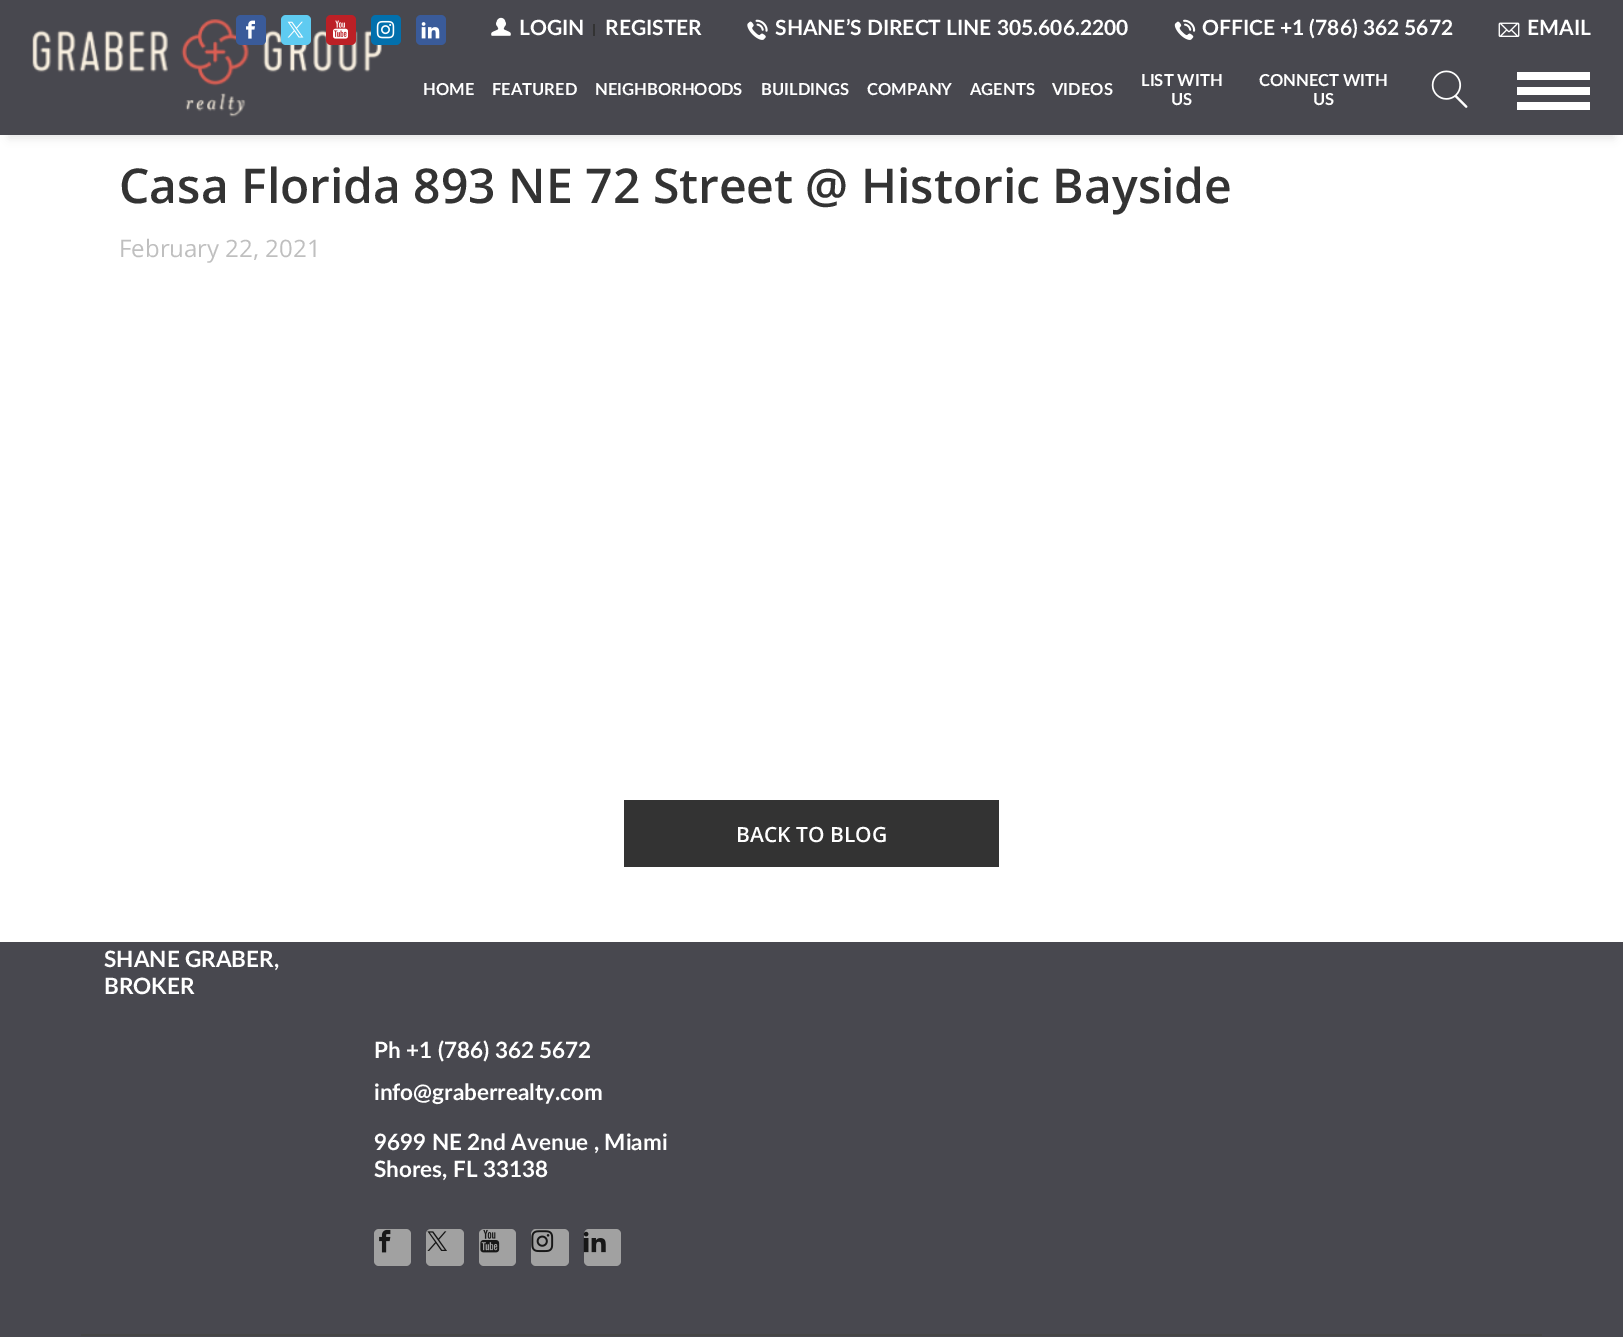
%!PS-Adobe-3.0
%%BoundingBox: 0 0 1623 1337
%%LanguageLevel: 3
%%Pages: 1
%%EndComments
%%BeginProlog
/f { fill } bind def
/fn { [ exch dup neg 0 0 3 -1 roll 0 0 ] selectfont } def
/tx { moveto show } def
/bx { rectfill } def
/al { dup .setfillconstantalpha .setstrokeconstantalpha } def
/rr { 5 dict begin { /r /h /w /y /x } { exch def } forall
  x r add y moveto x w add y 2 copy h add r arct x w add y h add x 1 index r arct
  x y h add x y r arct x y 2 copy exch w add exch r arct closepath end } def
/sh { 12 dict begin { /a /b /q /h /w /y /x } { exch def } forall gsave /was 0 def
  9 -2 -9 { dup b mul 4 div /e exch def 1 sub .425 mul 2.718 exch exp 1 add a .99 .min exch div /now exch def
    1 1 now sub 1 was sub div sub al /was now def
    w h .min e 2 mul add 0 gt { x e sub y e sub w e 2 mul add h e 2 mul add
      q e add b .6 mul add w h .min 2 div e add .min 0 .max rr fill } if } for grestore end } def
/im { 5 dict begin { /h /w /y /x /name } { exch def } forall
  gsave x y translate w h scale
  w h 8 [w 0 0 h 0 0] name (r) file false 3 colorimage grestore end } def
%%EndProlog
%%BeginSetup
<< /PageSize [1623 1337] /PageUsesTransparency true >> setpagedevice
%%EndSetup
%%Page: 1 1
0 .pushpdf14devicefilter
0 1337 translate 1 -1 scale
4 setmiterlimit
1 setgray
0 0 1623 1337 bx
0 setgray
9 21 1605 117 0 4.5 0.1 sh
0.282 0.282 0.31 setrgbcolor
0 0 1623 135 bx
(image9.raw) 32 19 350 98 im
0.227 0.357 0.604 setrgbcolor
236 15 30 30 5 rr f
(image0.raw) 246 20 9 19 im
0.373 0.796 0.945 setrgbcolor
281 15 30 30 5 rr f
(image1.raw) 287 21 17 17 im
0.737 0.125 0.149 setrgbcolor
326 15 30 30 5 rr f
(image2.raw) 333 20 15 19 im
0.008 0.439 0.678 setrgbcolor
371 15 30 30 5 rr f
(image3.raw) 376 20 19 19 im
0.227 0.357 0.604 setrgbcolor
416 15 30 30 5 rr f
(image4.raw) 421 22 19 17 im
(image5.raw) 491 17 20 19 im
/Lato-Bold 21 fn
1 setgray
(LOGIN) 519 35 tx
0.2 setgray
593 24 2 12 bx
1 setgray
(REGISTER) 605 35 tx
(image6.raw) 747 19 21 21 im
(SHANE’S DIRECT LINE 305.606.2200) 775 35 tx
(image7.raw) 1174 19 22 21 im
(OFFICE +1 \(786\) 362 5672) 1202 35 tx
(image8.raw) 1498 22 22 15 im
(EMAIL) 1527 35 tx
/Lato-Bold 16.5 fn
(HOME) 423 95 tx
(FEATURED) 492 95 tx
(NEIGHBORHOODS) 595 95 tx
(BUILDINGS) 761 95 tx
(COMPANY) 867 95 tx
(AGENTS) 970 95 tx
(VIDEOS) 1052 95 tx
(LIST WITH) 1141 86 tx
(US) 1171 105 tx
(CONNECT WITH) 1259 86 tx
(US) 1313 105 tx
(image10.raw) 1431 70 37 38 im
1517 72 73 8 bx
1517 87 73 8 bx
1517 102 73 8 bx
/OpenSans-SemiBold 48 fn
0.2 setgray
(Casa Florida 893 NE 72 Street @ Historic Bayside) 119 203 tx
/OpenSans-Regular 24 fn
0.749 setgray
(February 22, 2021) 119 257 tx
0.2 setgray
624 800 375 67 bx
/OpenSans-SemiBold 21 fn
1 setgray
(BACK TO BLOG) 736 842 tx
0.282 0.282 0.31 setrgbcolor
0 942 1623 395 bx
/Lato-Bold 22.5 fn
1 setgray
(SHANE GRABER,) 104 967 tx
(BROKER) 104 994 tx
(Ph +1 \(786\) 362 5672) 374 1058 tx
(info@graberrealty.com) 374 1100 tx
(9699 NE 2nd Avenue , Miami) 374 1150 tx
(Shores, FL 33138) 374 1177 tx
0.631 setgray
374 1229 37 37 5 rr f
(image11.raw) 379 1229 12 24 im
426 1229 38 37 5 rr f
(image12.raw) 427 1231 20 20 im
479 1229 37 37 5 rr f
(image13.raw) 480 1229 20 24 im
531 1229 38 37 5 rr f
(image14.raw) 531 1230 23 23 im
584 1229 37 37 5 rr f
(image15.raw) 583 1231 23 22 im
0.271 setgray
81 1334 1461 2 bx
.poppdf14devicefilter showpage
%%EOF
